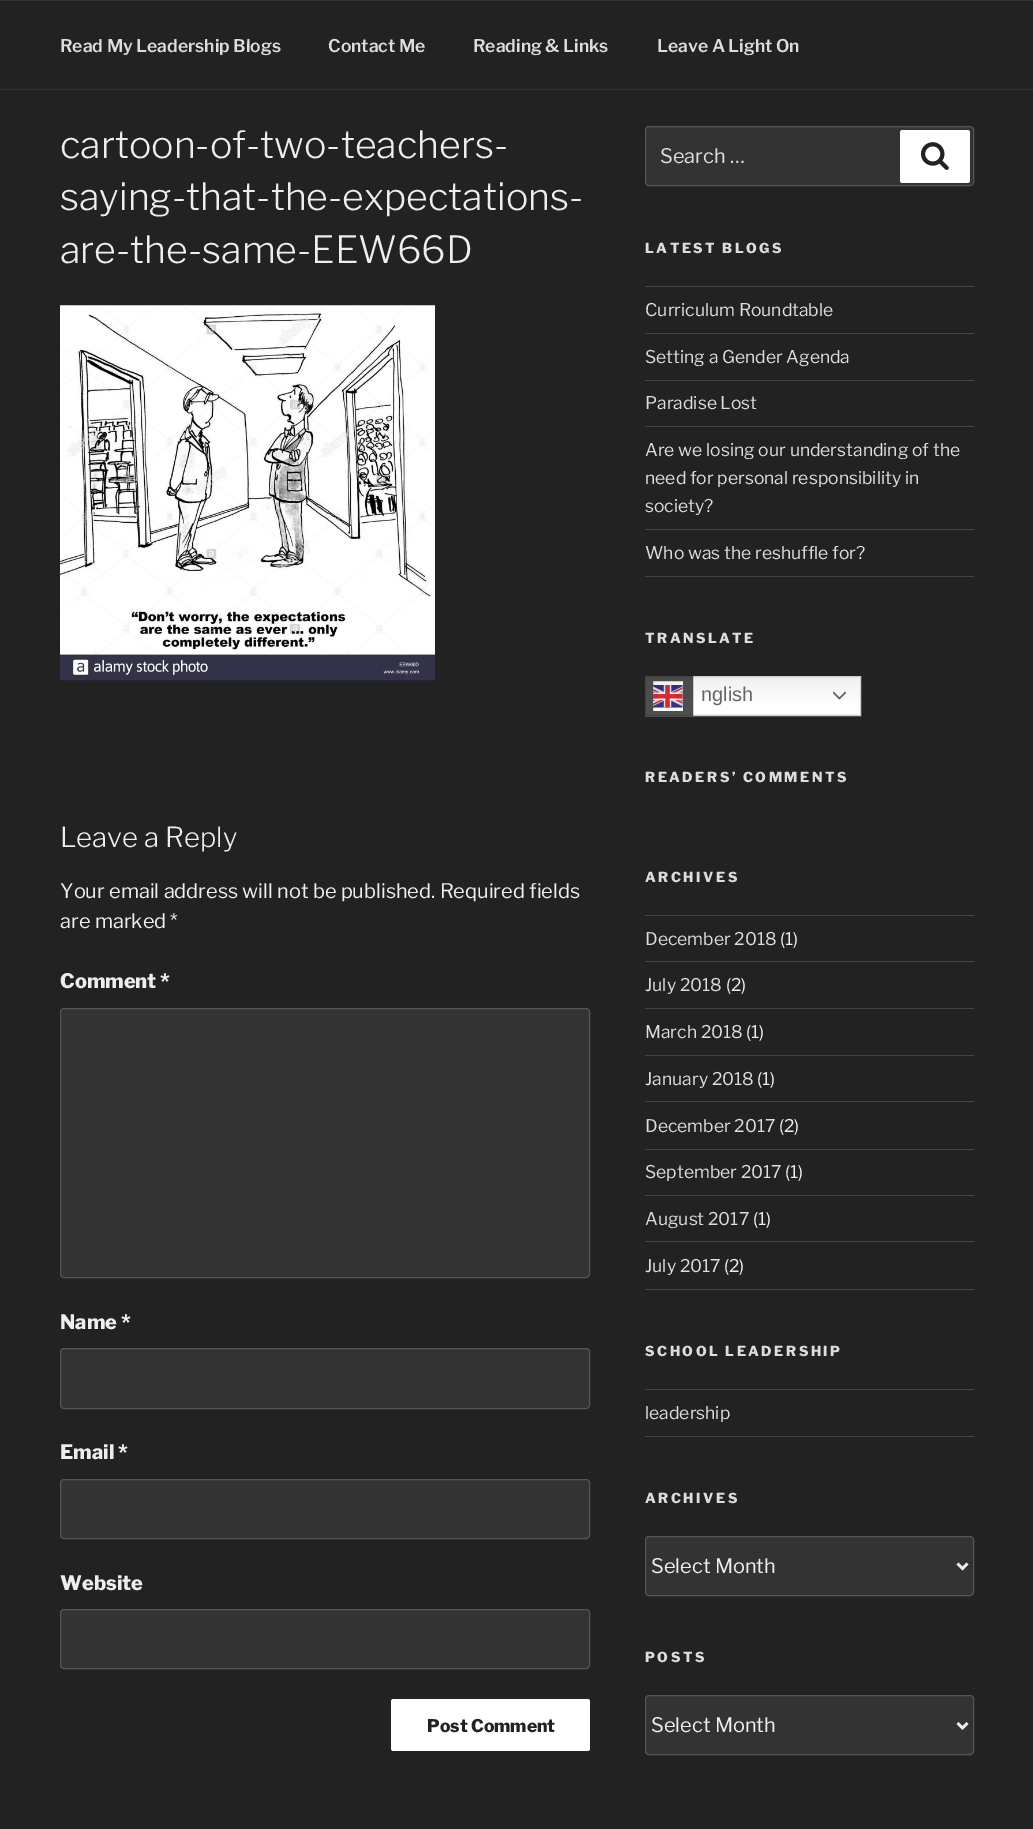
%!PS-Adobe-3.0
%%BoundingBox: 0 0 1033 1829
%%LanguageLevel: 3
%%Pages: 1
%%EndComments
%%BeginProlog
/m { moveto } bind def
/l { lineto } bind def
/h { closepath } bind def
/f { fill } bind def
/S { stroke } bind def
/q { gsave } bind def
/Q { grestore } bind def
/w { setlinewidth } bind def
/fn { [ exch dup neg 0 0 3 -1 roll 0 0 ] selectfont } def
/tx { moveto show } def
/bx { rectfill } def
/al { dup .setfillconstantalpha .setstrokeconstantalpha } def
/rr { 5 dict begin { /r /h /w /y /x } { exch def } forall
  x r add y moveto x w add y 2 copy h add r arct x w add y h add x 1 index r arct
  x y h add x y r arct x y 2 copy exch w add exch r arct closepath end } def
/im { 5 dict begin { /h /w /y /x /name } { exch def } forall
  gsave x y translate w h scale
  w h 8 [w 0 0 h 0 0] name (r) file false 3 colorimage grestore end } def
%%EndProlog
%%BeginSetup
<< /PageSize [1033 1829] /PageUsesTransparency true >> setpagedevice
%%EndSetup
%%Page: 1 1
0 .pushpdf14devicefilter
0 1829 translate 1 -1 scale
4 setmiterlimit
0.133 setgray
0 0 1033 1829 bx
0.2 setgray
0 0 1033 1 bx
0 89 1033 1 bx
/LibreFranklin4-Thin 17.5 fn
0.867 setgray
(Read My Leadership Blogs) 60 52 tx
(Contact Me) 328 52 tx
(Reading & Links) 473 52 tx
(Leave A Light On) 657 52 tx
/LibreFranklin-Thin 37.5 fn
0.933 setgray
(cartoon-of-two-teachers-) 60 158 tx
(saying-that-the-expectations-) 60 210 tx
(are-the-same-EEW66D) 60 263 tx
(image0.raw) 60 305 375 376 im
/LibreFranklin-Thin 27.5 fn
(Leave a Reply) 60 847 tx
/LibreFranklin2-Thin 20 fn
(Your email address will not be published. Required fields) 60 898 tx
(are marked *) 60 928 tx
/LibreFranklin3-Thin 20 fn
(Comment *) 60 988 tx
0.2 setgray
60.5 1008.5 529 269 3.5 rr q f Q
0.333 setgray
S
0.933 setgray
(Name *) 60 1329 tx
0.2 setgray
60.5 1348.5 529 60 3.5 rr q f Q
0.333 setgray
S
0.933 setgray
(Email *) 60 1459 tx
0.2 setgray
60.5 1479.5 529 59 3.5 rr q f Q
0.333 setgray
S
0.933 setgray
(Website) 60 1590 tx
0.2 setgray
60.5 1609.5 529 59 3.5 rr q f Q
0.333 setgray
S
1 setgray
391 1699 199 52 2.5 rr f
/LibreFranklin3-Thin 17.5 fn
0.133 setgray
(Post Comment) 427 1732 tx
0.2 setgray
645.5 126.5 328 59 3.5 rr q f Q
0.333 setgray
S
/LibreFranklin2-Thin 20 fn
0.867 setgray
(Search …) 660 163 tx
1 setgray
900 130 70 53 2.5 rr f
(image1.raw) 920 142 29 28 im
/LibreFranklin3-Thin 13.75 fn
0.867 setgray
645 253 m 2.5 0 (LATEST BLOGS) ashow
0.267 setgray
645 286 329 1 bx
645 333 329 1 bx
/LibreFranklin2-Thin 17.5 fn
0.867 setgray
(Curriculum Roundtable) 645 316 tx
0.267 setgray
645 380 329 1 bx
0.867 setgray
(Setting a Gender Agenda) 645 363 tx
0.267 setgray
645 426 329 1 bx
0.867 setgray
(Paradise Lost) 645 409 tx
0.267 setgray
645 529 329 1 bx
0.867 setgray
(Are we losing our understanding of the) 645 456 tx
(need for personal responsibility in) 645 484 tx
(society?) 645 512 tx
0.267 setgray
645 576 329 1 bx
0.867 setgray
(Who was the reshuffle for?) 645 559 tx
/LibreFranklin3-Thin 13.75 fn
645 643 m 2.5 0 (TRANSLATE) ashow
q 646 677 m 860 677 l 860 714 l 646 714 l h clip newpath
<< /ShadingType 2 /ColorSpace /DeviceRGB /Coords [753 676 753 716] /Extend [true true] /Function << /FunctionType 3 /Domain [0 1] /Functions [<< /FunctionType 2 /Domain [0 1] /C0 [0.937 0.937 0.937] /C1 [1 1 1] /N 1 >> << /FunctionType 2 /Domain [0 1] /C0 [1 1 1] /C1 [1 1 1] /N 1 >>] /Bounds [0.7] /Encode [0 1 0 1] >> >> shfill Q
0.941 setgray
646 714 214 1 bx
0.8 setgray
645.5 676.5 215 39 rectstroke
q
645 676 216 40 rectclip
0.8 al
0.133 setgray
10 w
648 676 40 40 rectstroke
Q
(image2.raw) 653 685 30 23 im
/LiberationSans-Regular 20 fn
0.4 setgray
(nglish) 701 701 tx
(image3.raw) 833 691 13 9 im
/LibreFranklin3-Thin 13.75 fn
0.867 setgray
645 782 m 2.5 0 (READERS’ COMMENTS) ashow
645 882 m 2.5 0 (ARCHIVES) ashow
0.267 setgray
645 915 329 1 bx
645 961 329 1 bx
/LibreFranklin2-Thin 17.5 fn
0.867 setgray
(December 2018) 645 945 tx
0.933 setgray
(\(1\)) 780 945 tx
0.267 setgray
645 1008 329 1 bx
0.867 setgray
(July 2018) 645 991 tx
0.933 setgray
(\(2\)) 726 991 tx
0.267 setgray
645 1055 329 1 bx
0.867 setgray
(March 2018) 645 1038 tx
0.933 setgray
(\(1\)) 746 1038 tx
0.267 setgray
645 1101 329 1 bx
0.867 setgray
(January 2018) 645 1085 tx
0.933 setgray
(\(1\)) 757 1085 tx
0.267 setgray
645 1149 329 1 bx
0.867 setgray
(December 2017) 645 1132 tx
0.933 setgray
(\(2\)) 779 1132 tx
0.267 setgray
645 1195 329 1 bx
0.867 setgray
(September 2017) 645 1178 tx
0.933 setgray
(\(1\)) 785 1178 tx
0.267 setgray
645 1241 329 1 bx
0.867 setgray
(August 2017) 645 1225 tx
0.933 setgray
(\(1\)) 753 1225 tx
0.267 setgray
645 1289 329 1 bx
0.867 setgray
(July 2017) 645 1272 tx
0.933 setgray
(\(2\)) 724 1272 tx
/LibreFranklin3-Thin 13.75 fn
0.867 setgray
645 1356 m 2.5 0 (SCHOOL LEADERSHIP) ashow
0.267 setgray
645 1389 329 1 bx
645 1436 329 1 bx
/LibreFranklin2-Thin 17.5 fn
0.867 setgray
(leadership) 645 1419 tx
/LibreFranklin3-Thin 13.75 fn
645 1503 m 2.5 0 (ARCHIVES) ashow
0.2 setgray
645.5 1536.5 328 59 3.5 rr q f Q
0.333 setgray
S
0.933 setgray
2.5 w
957.5 1563.5 m 962.5 1568.5 l 967.5 1563.5 l S
/LibreFranklin2-Thin 20 fn
(Select Month) 651 1573 tx
/LibreFranklin3-Thin 13.75 fn
0.867 setgray
645 1662 m 2.5 0 (POSTS) ashow
0.2 setgray
645.5 1695.5 328 59 3.5 rr q f Q
0.333 setgray
1 w
S
0.933 setgray
2.5 w
957.5 1723 m 962.5 1728 l 967.5 1723 l S
/LibreFranklin2-Thin 20 fn
(Select Month) 651 1732 tx
.poppdf14devicefilter showpage
%%EOF
